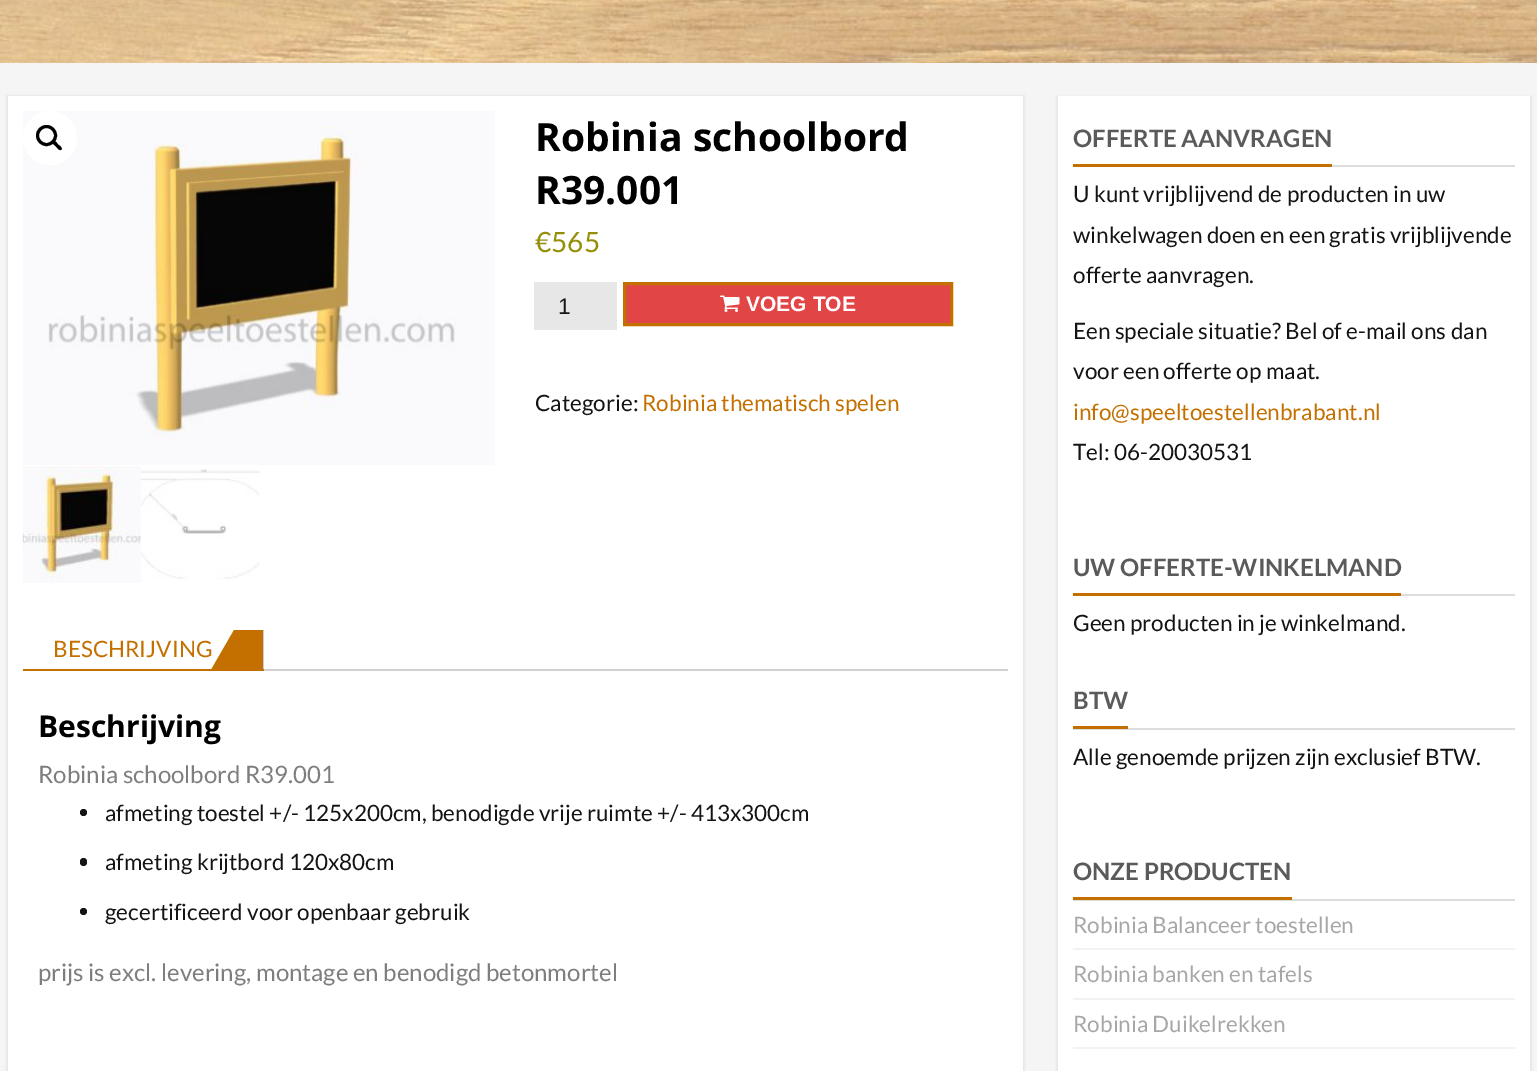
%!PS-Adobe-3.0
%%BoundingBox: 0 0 1537 1071
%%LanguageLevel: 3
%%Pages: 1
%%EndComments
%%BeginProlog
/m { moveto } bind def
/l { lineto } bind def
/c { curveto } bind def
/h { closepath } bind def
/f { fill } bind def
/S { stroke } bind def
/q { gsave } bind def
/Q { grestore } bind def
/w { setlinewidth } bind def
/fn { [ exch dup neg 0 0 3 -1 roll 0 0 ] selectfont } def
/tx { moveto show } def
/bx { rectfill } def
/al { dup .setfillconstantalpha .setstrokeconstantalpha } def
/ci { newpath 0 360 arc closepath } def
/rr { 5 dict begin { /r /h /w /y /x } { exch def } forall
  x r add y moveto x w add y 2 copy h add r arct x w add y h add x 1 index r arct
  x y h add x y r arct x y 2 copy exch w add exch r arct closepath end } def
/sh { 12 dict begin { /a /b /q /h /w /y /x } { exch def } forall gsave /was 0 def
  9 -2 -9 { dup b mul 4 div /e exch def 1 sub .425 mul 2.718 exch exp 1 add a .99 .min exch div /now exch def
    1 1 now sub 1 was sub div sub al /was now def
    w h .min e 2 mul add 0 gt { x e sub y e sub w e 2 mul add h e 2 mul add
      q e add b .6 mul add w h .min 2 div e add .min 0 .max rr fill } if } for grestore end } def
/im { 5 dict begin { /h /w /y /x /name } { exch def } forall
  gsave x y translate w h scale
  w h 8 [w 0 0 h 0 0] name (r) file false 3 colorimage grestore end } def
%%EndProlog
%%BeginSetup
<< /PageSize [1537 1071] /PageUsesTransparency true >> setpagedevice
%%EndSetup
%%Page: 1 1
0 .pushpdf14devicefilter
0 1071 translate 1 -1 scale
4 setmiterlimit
1 setgray
0 0 1537 1071 bx
(image0.raw) 0 0 1537 63 im
0.961 setgray
0 63 1537 1008 bx
0 setgray
6 95 1019 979 0 1 0.05 sh
1 setgray
8 96 1015 975 bx
(image1.raw) 23 111 472 354 im
50 138 27 ci f
0 setgray
3 w
46.5 135.5 9 ci S
53 141 m 54.5 139.5 57.5 143.5 58 144.5 c 59 145 63 148 61.5 149.5 c 59.5 151.5 57 147.5 56 146.5 c 55 145.5 51 143 53 141 c h f
(image2.raw) 22 466 119 117 im
(image3.raw) 141 469 119 111 im
/OpenSans-Bold 39 fn
(Robinia schoolbord) 535 151 tx
(R39.001) 535 204 tx
/Lato-Regular 28 fn
0.584 0.557 0.035 setrgbcolor
(€565) 535 252 tx
0.906 setgray
534 282 83 48 bx
/LiberationSans-Regular 22.5 fn
0.078 setgray
(1) 558 314 tx
0.886 0.271 0.271 setrgbcolor
624.5 283.5 m 951.5 283.5 l 951.5 324.5 l 624.5 324.5 l h q f Q
0.769 0.439 0.004 setrgbcolor
S
(image4.raw) 720 295 20 17 im
/LiberationSans-Bold 21 fn
1 setgray
(VOEG TOE) 746 311 tx
/Lato-Regular 22.5 fn
0.078 setgray
(Categorie:) 535 411 tx
0.769 0.439 0.004 setrgbcolor
(Robinia thematisch spelen) 642 411 tx
23 669 241 2 bx
(BESCHRIJVING) 53 657 tx
234 669 m 211.5 669 l 234 630 l h f
234 630 29 39 bx
0.812 0.784 0.847 setrgbcolor
263 630 1 39 bx
0.827 0.808 0.824 setrgbcolor
264 669 744 2 bx
/OpenSans-Bold 30 fn
0 setgray
(Beschrijving) 38 737 tx
/Lato-Regular 24 fn
0.498 0.494 0.494 setrgbcolor
(Robinia schoolbord R39.001) 38 783 tx
0.078 setgray
83.5 812.5 3.5 ci f
/Lato-Regular 22.5 fn
(afmeting toestel +/- 125x200cm, benodigde vrije ruimte +/- 413x300cm) 105 821 tx
80 858 7 8 3.5 rr f
(afmeting krijtbord 120x80cm) 105 870 tx
83.5 911.5 3.5 ci f
(gecertificeerd voor openbaar gebruik) 105 920 tx
/Lato-Regular 24 fn
0.498 0.494 0.494 setrgbcolor
(prijs is excl. levering, montage en benodigd betonmortel) 38 981 tx
0 setgray
1056 96 476 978 0 1 0.05 sh
1 setgray
1058 96 472 975 bx
0.769 0.439 0.004 setrgbcolor
1073 164 259 3 bx
/Lato-Bold 24 fn
0.353 setgray
(OFFERTE AANVRAGEN) 1073 147 tx
0.867 setgray
1332 165 183 2 bx
/Lato-Regular 22.5 fn
0.078 setgray
(U kunt vrijblijvend de producten in uw) 1073 202 tx
(winkelwagen doen en een gratis vrijblijvende) 1073 243 tx
(offerte aanvragen.) 1073 283 tx
(Een speciale situatie? Bel of e-mail ons dan) 1073 339 tx
(voor een offerte op maat.) 1073 379 tx
0.769 0.439 0.004 setrgbcolor
(info@speeltoestellenbrabant.nl) 1073 420 tx
0.078 setgray
(Tel: 06-20030531) 1073 460 tx
0.769 0.439 0.004 setrgbcolor
1073 593 328 3 bx
/Lato-Bold 24 fn
0.353 setgray
(UW OFFERTE-WINKELMAND) 1073 576 tx
0.867 setgray
1401 594 114 2 bx
/Lato-Regular 22.5 fn
0.078 setgray
(Geen producten in je winkelmand.) 1073 631 tx
0.867 setgray
1073 728 442 2 bx
0.769 0.439 0.004 setrgbcolor
1073 726 55 3 bx
/Lato-Bold 24 fn
0.353 setgray
(BTW) 1073 709 tx
/Lato-Regular 22.5 fn
0.078 setgray
(Alle genoemde prijzen zijn exclusief BTW.) 1073 765 tx
0.867 setgray
1073 899 442 2 bx
0.769 0.439 0.004 setrgbcolor
1073 897 219 3 bx
/Lato-Bold 24 fn
0.353 setgray
(ONZE PRODUCTEN) 1073 880 tx
0.949 setgray
1073 948 442 2 bx
/Lato-Regular 22.5 fn
0.659 0.655 0.655 setrgbcolor
(Robinia Balanceer toestellen) 1073 933 tx
0.949 setgray
1073 998 442 2 bx
0.659 0.655 0.655 setrgbcolor
(Robinia banken en tafels) 1073 982 tx
0.949 setgray
1073 1047 442 2 bx
0.659 0.655 0.655 setrgbcolor
(Robinia Duikelrekken) 1073 1032 tx
.poppdf14devicefilter showpage
%%EOF
